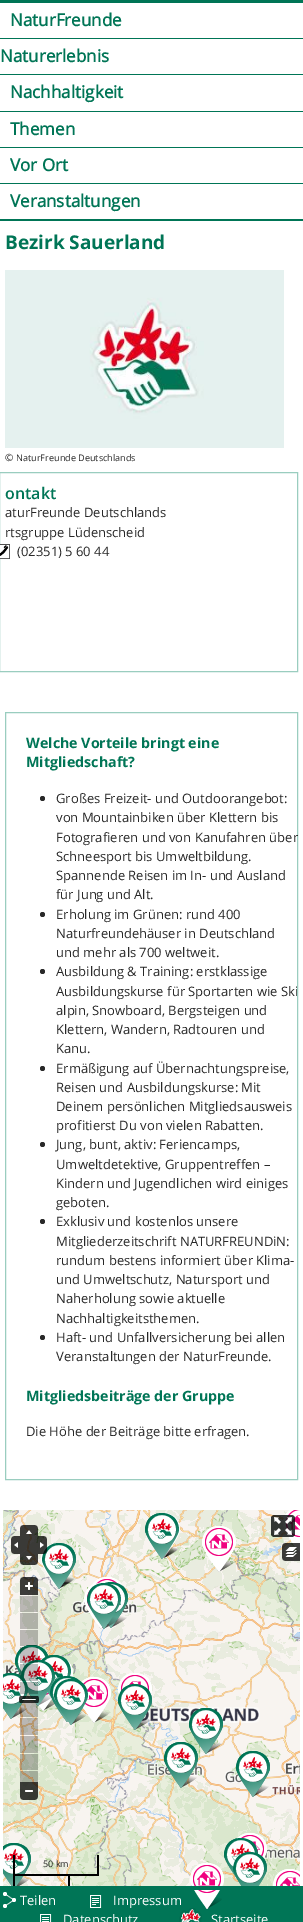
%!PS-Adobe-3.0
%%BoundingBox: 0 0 303 1922
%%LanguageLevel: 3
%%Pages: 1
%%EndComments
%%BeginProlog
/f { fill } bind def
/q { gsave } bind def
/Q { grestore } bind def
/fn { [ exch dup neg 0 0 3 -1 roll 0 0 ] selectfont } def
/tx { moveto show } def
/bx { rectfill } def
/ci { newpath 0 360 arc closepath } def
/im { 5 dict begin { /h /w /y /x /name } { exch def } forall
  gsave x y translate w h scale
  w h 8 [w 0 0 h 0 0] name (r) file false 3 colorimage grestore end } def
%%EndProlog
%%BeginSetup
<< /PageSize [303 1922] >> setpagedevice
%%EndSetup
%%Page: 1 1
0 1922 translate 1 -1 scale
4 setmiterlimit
1 setgray
0 0 303 1922 bx
0 0.459 0.337 setrgbcolor
0 0 303 3 bx
0 219 303 2 bx
/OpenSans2-Bold 17 fn
(NaturFreunde) 10 26 tx
0 38 303 1 bx
(Naturerlebnis) 0 62 tx
0 74 303 1 bx
(Nachhaltigkeit) 10 98 tx
0 111 303 1 bx
(Themen) 10 135 tx
0 147 303 1 bx
(Vor Ort) 10 171 tx
0 183 303 1 bx
(Veranstaltungen) 10 207 tx
/OpenSans-Bold 19 fn
(Bezirk Sauerland) 5 249 tx
(image0.raw) 5 270 279 178 im
/OpenSans-Regular 10 fn
0.157 setgray
(©) 5 461 tx
/OpenSans-Regular 9.1 fn
(NaturFreunde Deutschlands) 16 461 tx
0.604 0.804 0.749 setrgbcolor
-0.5 472.5 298 199 rectstroke
/OpenSans-SemiBold 16 fn
0 0.459 0.337 setrgbcolor
(ontakt) 5 499 tx
/OpenSans-Regular 13 fn
0.157 setgray
(aturFreunde Deutschlands) 5 517 tx
(rtsgruppe Lüdenscheid) 5 537 tx
(image1.raw) 0 544 10 15 im
(\(02351\) 5 60 44) 17 556 tx
0.604 0.804 0.749 setrgbcolor
5.5 712.5 292 767 rectstroke
/OpenSans-Bold 14.25 fn
0 0.459 0.337 setrgbcolor
(Welche Vorteile bringt eine) 26 748 tx
(Mitgliedschaft?) 26 767 tx
0.157 setgray
42.5 798.5 2.5 ci f
/OpenSans-Regular 13 fn
(Großes Freizeit- und Outdoorangebot:) 56 803 tx
(von Mountainbiken über Klettern bis) 56 822 tx
(Fotografieren und von Kanufahren über) 56 842 tx
(Schneesport bis Umweltbildung.) 56 861 tx
(Spannende Reisen im In- und Ausland) 56 880 tx
(für Jung und Alt.) 56 899 tx
42.5 914.5 2.5 ci f
(Erholung im Grünen: rund 400) 56 919 tx
(Naturfreundehäuser in Deutschland) 56 938 tx
(und mehr als 700 weltweit.) 56 957 tx
42.5 971.5 2.5 ci f
(Ausbildung & Training: erstklassige) 56 976 tx
q
6 713 291 766 rectclip
(Ausbildungskurse für Sportarten wie Ski) 56 996 tx
Q
(alpin, Snowboard, Bergsteigen und) 56 1015 tx
(Klettern, Wandern, Radtouren und) 56 1034 tx
(Kanu.) 56 1053 tx
42.5 1068.5 2.5 ci f
(Ermäßigung auf Übernachtungspreise,) 56 1073 tx
(Reisen und Ausbildungskurse: Mit) 56 1092 tx
(Deinem persönlichen Mitgliedsausweis) 56 1111 tx
(profitierst Du von vielen Rabatten.) 56 1130 tx
42.5 1144.5 2.5 ci f
(Jung, bunt, aktiv: Feriencamps,) 56 1149 tx
(Umweltdetektive, Gruppentreffen –) 56 1169 tx
(Kindern und Jugendlichen wird einiges) 56 1188 tx
(geboten.) 56 1207 tx
42.5 1221.5 2.5 ci f
(Exklusiv und kostenlos unsere) 56 1226 tx
(Mitgliederzeitschrift NATURFREUNDiN:) 56 1246 tx
(rundum bestens informiert über Klima-) 56 1265 tx
(und Umweltschutz, Natursport und) 56 1284 tx
(Naherholung sowie aktuelle) 56 1303 tx
(Nachhaltigkeitsthemen.) 56 1323 tx
42.5 1337.5 2.5 ci f
(Haft- und Unfallversicherung bei allen) 56 1342 tx
(Veranstaltungen der NaturFreunde.) 56 1361 tx
/OpenSans-Bold 14.25 fn
0 0.459 0.337 setrgbcolor
(Mitgliedsbeiträge der Gruppe) 26 1401 tx
/OpenSans-Regular 13 fn
0.157 setgray
(Die Höhe der Beiträge bitte erfragen.) 26 1436 tx
(image5.raw) 88 1582 212 256 im
(image4.raw) 3 1582 86 256 im
(image2.raw) 3 1510 85 74 im
(image3.raw) 88 1510 212 73 im
(image6.raw) 3 1838 85 48 im
(image7.raw) 88 1837 212 49 im
(image8.raw) 3 1513 297 373 im
(image9.raw) 20 1525 18 11 im
(image10.raw) 11 1536 18 18 im
(image11.raw) 29 1536 18 20 im
(image12.raw) 20 1554 18 11 im
(image13.raw) 20 1577 18 18 im
(image14.raw) 19 1596 20 186 im
(image15.raw) 19 1694 20 12 im
(image16.raw) 20 1782 18 18 im
(image17.raw) 271 1514 24 23 im
(image18.raw) 282 1542 18 19 im
0 setgray
97 1855 2 21 bx
13 1874 86 2 bx
13 1855 2 31 bx
/OpenSans-Regular 9 fn
0.157 setgray
(50 km) 43 1867 tx
0 setgray
68 1874 2 12 bx
0 0.459 0.337 setrgbcolor
0 1886 303 36 bx
(image19.raw) 3 1892 13 16 im
/OpenSans-Regular 13 fn
1 setgray
(Teilen) 20 1905 tx
(image20.raw) 194 1890 28 19 im
(image21.raw) 90 1895 12 13 im
(Impressum) 113 1905 tx
(image22.raw) 40 1914 12 8 im
(Datenschutz) 63 1924 tx
(image23.raw) 179 1907 31 15 im
(Startseite) 211 1924 tx
showpage
%%EOF
